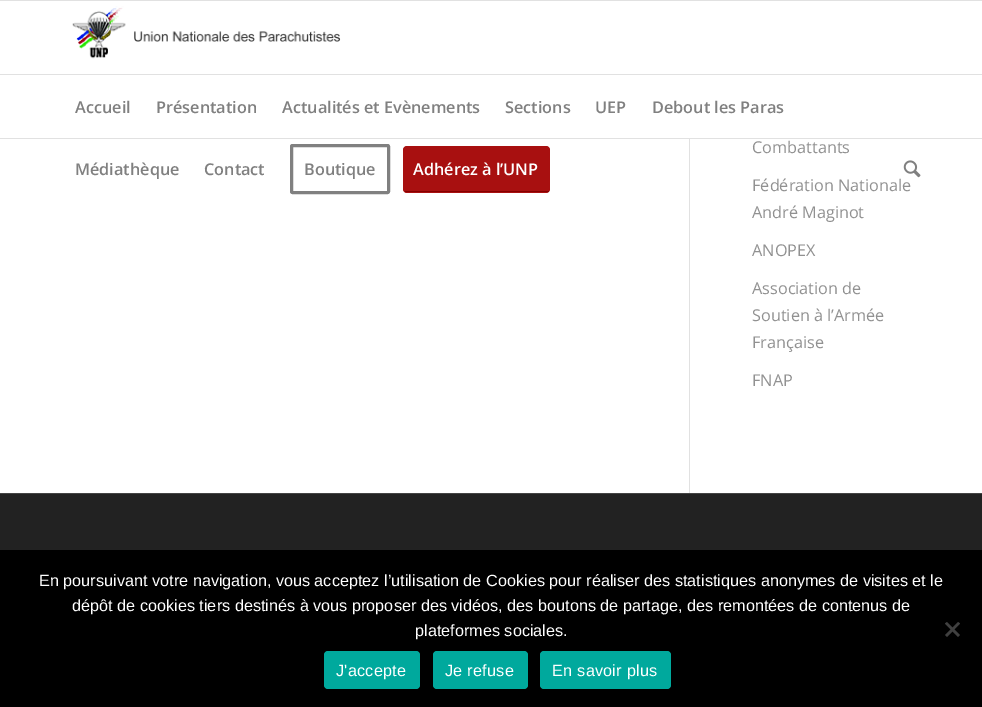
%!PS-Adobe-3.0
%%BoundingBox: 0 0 982 707
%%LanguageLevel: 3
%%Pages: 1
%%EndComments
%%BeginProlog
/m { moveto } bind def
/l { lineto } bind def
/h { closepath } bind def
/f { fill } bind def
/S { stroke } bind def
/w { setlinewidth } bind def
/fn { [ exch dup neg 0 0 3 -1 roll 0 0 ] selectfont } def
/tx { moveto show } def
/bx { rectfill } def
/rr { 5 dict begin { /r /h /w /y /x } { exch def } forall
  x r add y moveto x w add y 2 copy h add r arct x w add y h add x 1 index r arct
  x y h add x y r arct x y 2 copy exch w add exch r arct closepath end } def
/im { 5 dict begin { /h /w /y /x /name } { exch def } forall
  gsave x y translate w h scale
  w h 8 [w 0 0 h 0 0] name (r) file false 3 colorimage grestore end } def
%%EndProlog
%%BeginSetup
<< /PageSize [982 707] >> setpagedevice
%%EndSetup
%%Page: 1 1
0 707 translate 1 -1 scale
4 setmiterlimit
1 setgray
0 0 982 707 bx
0.882 setgray
0 0 982 1 bx
0 138 982 1 bx
(image0.raw) 72 6 269 53 im
0 74 982 1 bx
/OpenSans-SemiBold 16.25 fn
0.502 setgray
(Accueil) 75 113 tx
(Présentation) 156 113 tx
(Actualités et Evènements) 282 113 tx
(Sections) 505 113 tx
(UEP) 595 113 tx
(Debout les Paras) 652 113 tx
(Médiathèque) 75 175 tx
(Contact) 204 175 tx
3 w
291.5 145.5 97 47 1 rr S
(Boutique) 304 175 tx
0.659 0.063 0.063 setrgbcolor
403 146 147 47 4 rr f
1 setgray
(Adhérez à l’UNP) 413 175 tx
0.525 0 0 setrgbcolor
405 191 144 1 bx
(image1.raw) 903 160 18 18 im
0.882 setgray
689 139 1 354 bx
/OpenSans-Regular 16.25 fn
0.569 setgray
(Combattants) 752 153 tx
(Fédération Nationale) 752 191 tx
(André Maginot) 752 218 tx
(ANOPEX) 752 256 tx
(Association de) 752 294 tx
(Soutien à l’Armée) 752 321 tx
(Française) 752 348 tx
(FNAP) 752 386 tx
0.133 setgray
0 494 982 56 bx
0.267 setgray
0 493 982 1 bx
0 setgray
0 550 982 157 bx
/LiberationSans-Regular 16.25 fn
1 setgray
(En poursuivant votre navigation, vous acceptez l’utilisation de Cookies pour réaliser des statistiques anonymes de visites et le) 39 586 tx
(dépôt de cookies tiers destinés à vous proposer des vidéos, des boutons de partage, des remontées de contenus de) 72 611 tx
(plateformes sociales.) 415 636 tx
0.251 setgray
958 622 m 960 623.5 l 947 637 l 945 635 l h f
945 623.5 m 947 622 l 960 635 l 958 637 l h f
0 0.663 0.616 setrgbcolor
324 651 96 38 4 rr f
1 setgray
336 676 m 0.25 0 (J'accepte) ashow
0 0.663 0.616 setrgbcolor
433 651 95 38 4 rr f
1 setgray
445 676 m 0.25 0 (Je refuse) ashow
0 0.663 0.616 setrgbcolor
540 651 131 38 4 rr f
1 setgray
552 676 m 0.25 0 (En savoir plus) ashow
showpage
%%EOF
